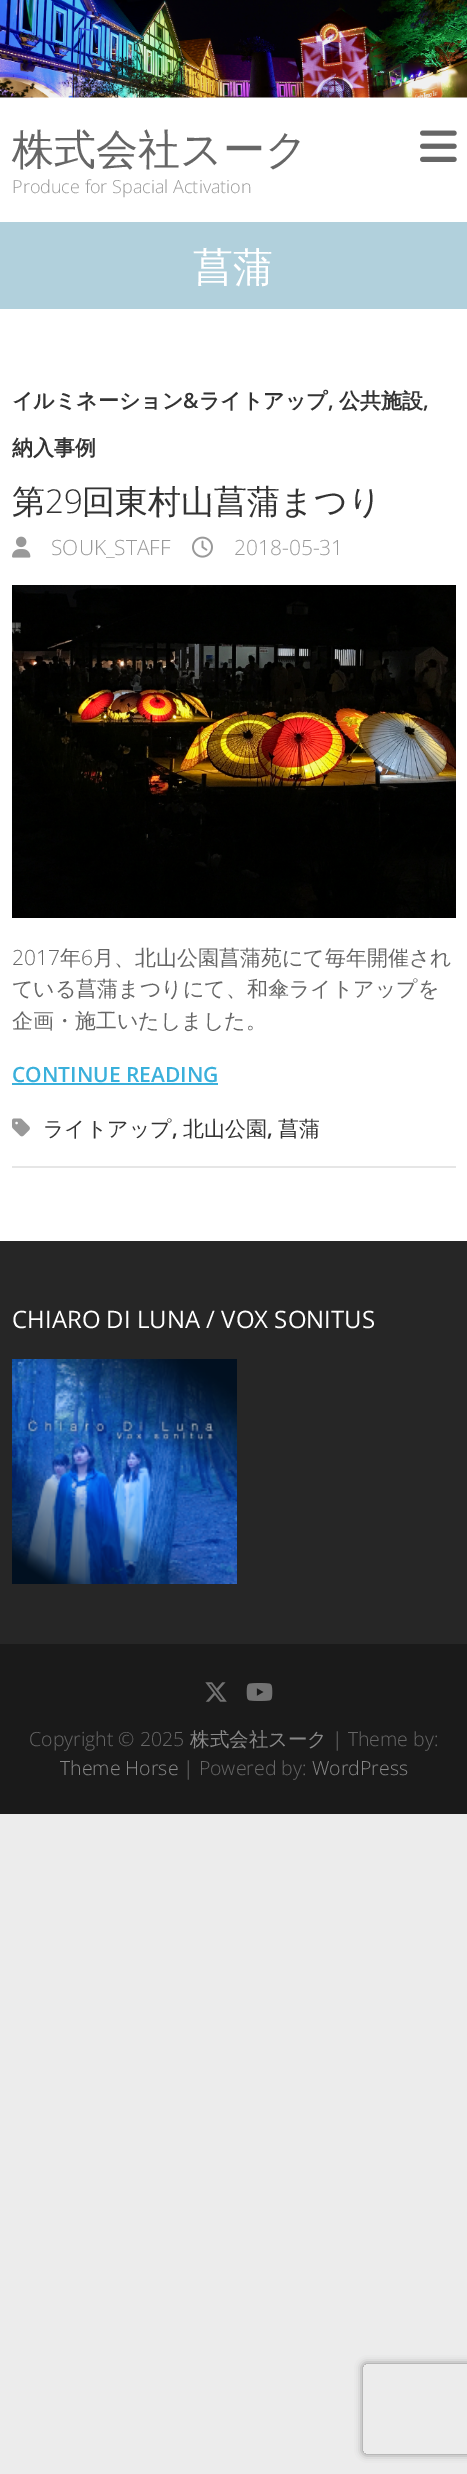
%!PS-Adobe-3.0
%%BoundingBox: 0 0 467 2474
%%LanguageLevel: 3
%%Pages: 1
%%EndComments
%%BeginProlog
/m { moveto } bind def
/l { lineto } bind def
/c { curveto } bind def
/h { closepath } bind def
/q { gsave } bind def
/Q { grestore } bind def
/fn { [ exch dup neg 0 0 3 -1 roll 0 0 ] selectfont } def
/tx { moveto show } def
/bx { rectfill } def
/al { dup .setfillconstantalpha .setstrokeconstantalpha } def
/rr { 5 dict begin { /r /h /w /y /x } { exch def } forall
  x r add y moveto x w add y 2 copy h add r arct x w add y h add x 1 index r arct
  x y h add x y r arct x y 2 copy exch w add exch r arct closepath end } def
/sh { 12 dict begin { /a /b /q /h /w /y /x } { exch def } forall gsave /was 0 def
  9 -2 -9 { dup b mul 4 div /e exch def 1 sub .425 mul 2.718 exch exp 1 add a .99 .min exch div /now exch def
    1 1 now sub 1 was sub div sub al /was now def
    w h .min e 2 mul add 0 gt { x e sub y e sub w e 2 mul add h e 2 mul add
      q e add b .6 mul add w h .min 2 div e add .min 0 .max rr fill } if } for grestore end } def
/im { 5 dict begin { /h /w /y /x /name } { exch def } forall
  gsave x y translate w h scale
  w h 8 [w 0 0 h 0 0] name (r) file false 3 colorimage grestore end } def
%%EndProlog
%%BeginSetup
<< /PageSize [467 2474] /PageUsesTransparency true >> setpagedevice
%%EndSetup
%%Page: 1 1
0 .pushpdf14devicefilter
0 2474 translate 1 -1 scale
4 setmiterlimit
0.925 setgray
0 0 467 2474 bx
1 setgray
0 97 467 1144 bx
(image0.raw) 0 0 467 98 im
/WenQuanYiZenHei-Medium 42 fn
0.4 setgray
(株式会社スーク) 12 164 tx
/OpenSans-Light 18 fn
0.6 setgray
(Produce for Spacial Activation) 12 193 tx
(image1.raw) 420 130 37 32 im
0.694 0.816 0.863 setrgbcolor
0 222 467 87 bx
/WenQuanYiZenHei-Medium 40 fn
1 setgray
(菖蒲) 193 281 tx
/WenQuanYiZenHei-Bold 21 fn
0.2 setgray
(イルミネーション) 12 408 tx
/OpenSans-SemiBold 21 fn
(&) 183 408 tx
/WenQuanYiZenHei-Bold 21 fn
(ライトアップ) 199 408 tx
/OpenSans-SemiBold 21 fn
(,) 328 408 tx
/WenQuanYiZenHei-Bold 21 fn
(公共施設) 339 408 tx
/OpenSans-SemiBold 21 fn
(,) 423 408 tx
/WenQuanYiZenHei-Bold 21 fn
(納入事例) 12 455 tx
/WenQuanYiZenHei-Medium 33 fn
(第) 12 513 tx
/OpenSans-Light 33 fn
(29) 45 513 tx
/WenQuanYiZenHei-Medium 33 fn
(回東村山菖蒲まつり) 82 513 tx
(image2.raw) 12 536 19 22 im
/OpenSans-Light 21 fn
0.6 setgray
(SOUK_STAFF) 51 555 tx
(image3.raw) 192 536 21 22 im
(2018-05-31) 234 555 tx
(image4.raw) 12 585 444 333 im
0.4 setgray
(2017) 12 965 tx
/WenQuanYiZenHei-Medium 21 fn
(年) 60 965 tx
/OpenSans-Light 21 fn
(6) 81 965 tx
/WenQuanYiZenHei-Medium 21 fn
(月、北山公園菖蒲苑にて毎年開催され) 93 965 tx
(ている菖蒲まつりにて、和傘ライトアップを) 12 996 tx
(企画・施工いたしました。) 12 1028 tx
/OpenSans-SemiBold 21 fn
0.227 0.69 0.859 setrgbcolor
(CONTINUE READING) 12 1082 tx
12 1083 206 2 bx
0.902 setgray
12 1166 444 2 bx
(image5.raw) 12 1118 18 19 im
/WenQuanYiZenHei-Medium 21 fn
0.2 setgray
(ライトアップ) 43 1136 tx
/OpenSans-SemiBold 21 fn
(,) 172 1136 tx
/WenQuanYiZenHei-Medium 21 fn
(北山公園) 183 1136 tx
/OpenSans-SemiBold 21 fn
(,) 267 1136 tx
/WenQuanYiZenHei-Medium 21 fn
(菖蒲) 278 1136 tx
0.149 setgray
0 1241 467 403 bx
/OpenSans-Regular 24 fn
1 setgray
(CHIARO DI LUNA / VOX SONITUS) 12 1328 tx
(image6.raw) 12 1359 225 225 im
0.102 setgray
0 1644 467 170 bx
(image7.raw) 205 1682 22 20 im
(image8.raw) 246 1683 27 18 im
/OpenSans-Light 19.5 fn
0.4 setgray
(Copyright © 2025) 29 1746 tx
/WenQuanYiZenHei-Medium 19.5 fn
0.533 setgray
(株式会社スーク) 190 1746 tx
/OpenSans-Light 19.5 fn
0.4 setgray
(| Theme by:) 332 1746 tx
0.533 setgray
(Theme Horse) 60 1775 tx
0.4 setgray
(| Powered by:) 183 1775 tx
0.533 setgray
(WordPress) 312 1775 tx
q
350 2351 m 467 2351 l 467 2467 l 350 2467 l h 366 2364 m 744 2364 l 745.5 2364 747 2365.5 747 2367 c 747 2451 l 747 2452.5 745.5 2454 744 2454 c 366 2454 l 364.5 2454 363 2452.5 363 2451 c 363 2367 l 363 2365.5 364.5 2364 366 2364 c h eoclip newpath
0.502 setgray
363 2364 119 90 3 4 1 sh
Q
.poppdf14devicefilter showpage
%%EOF
